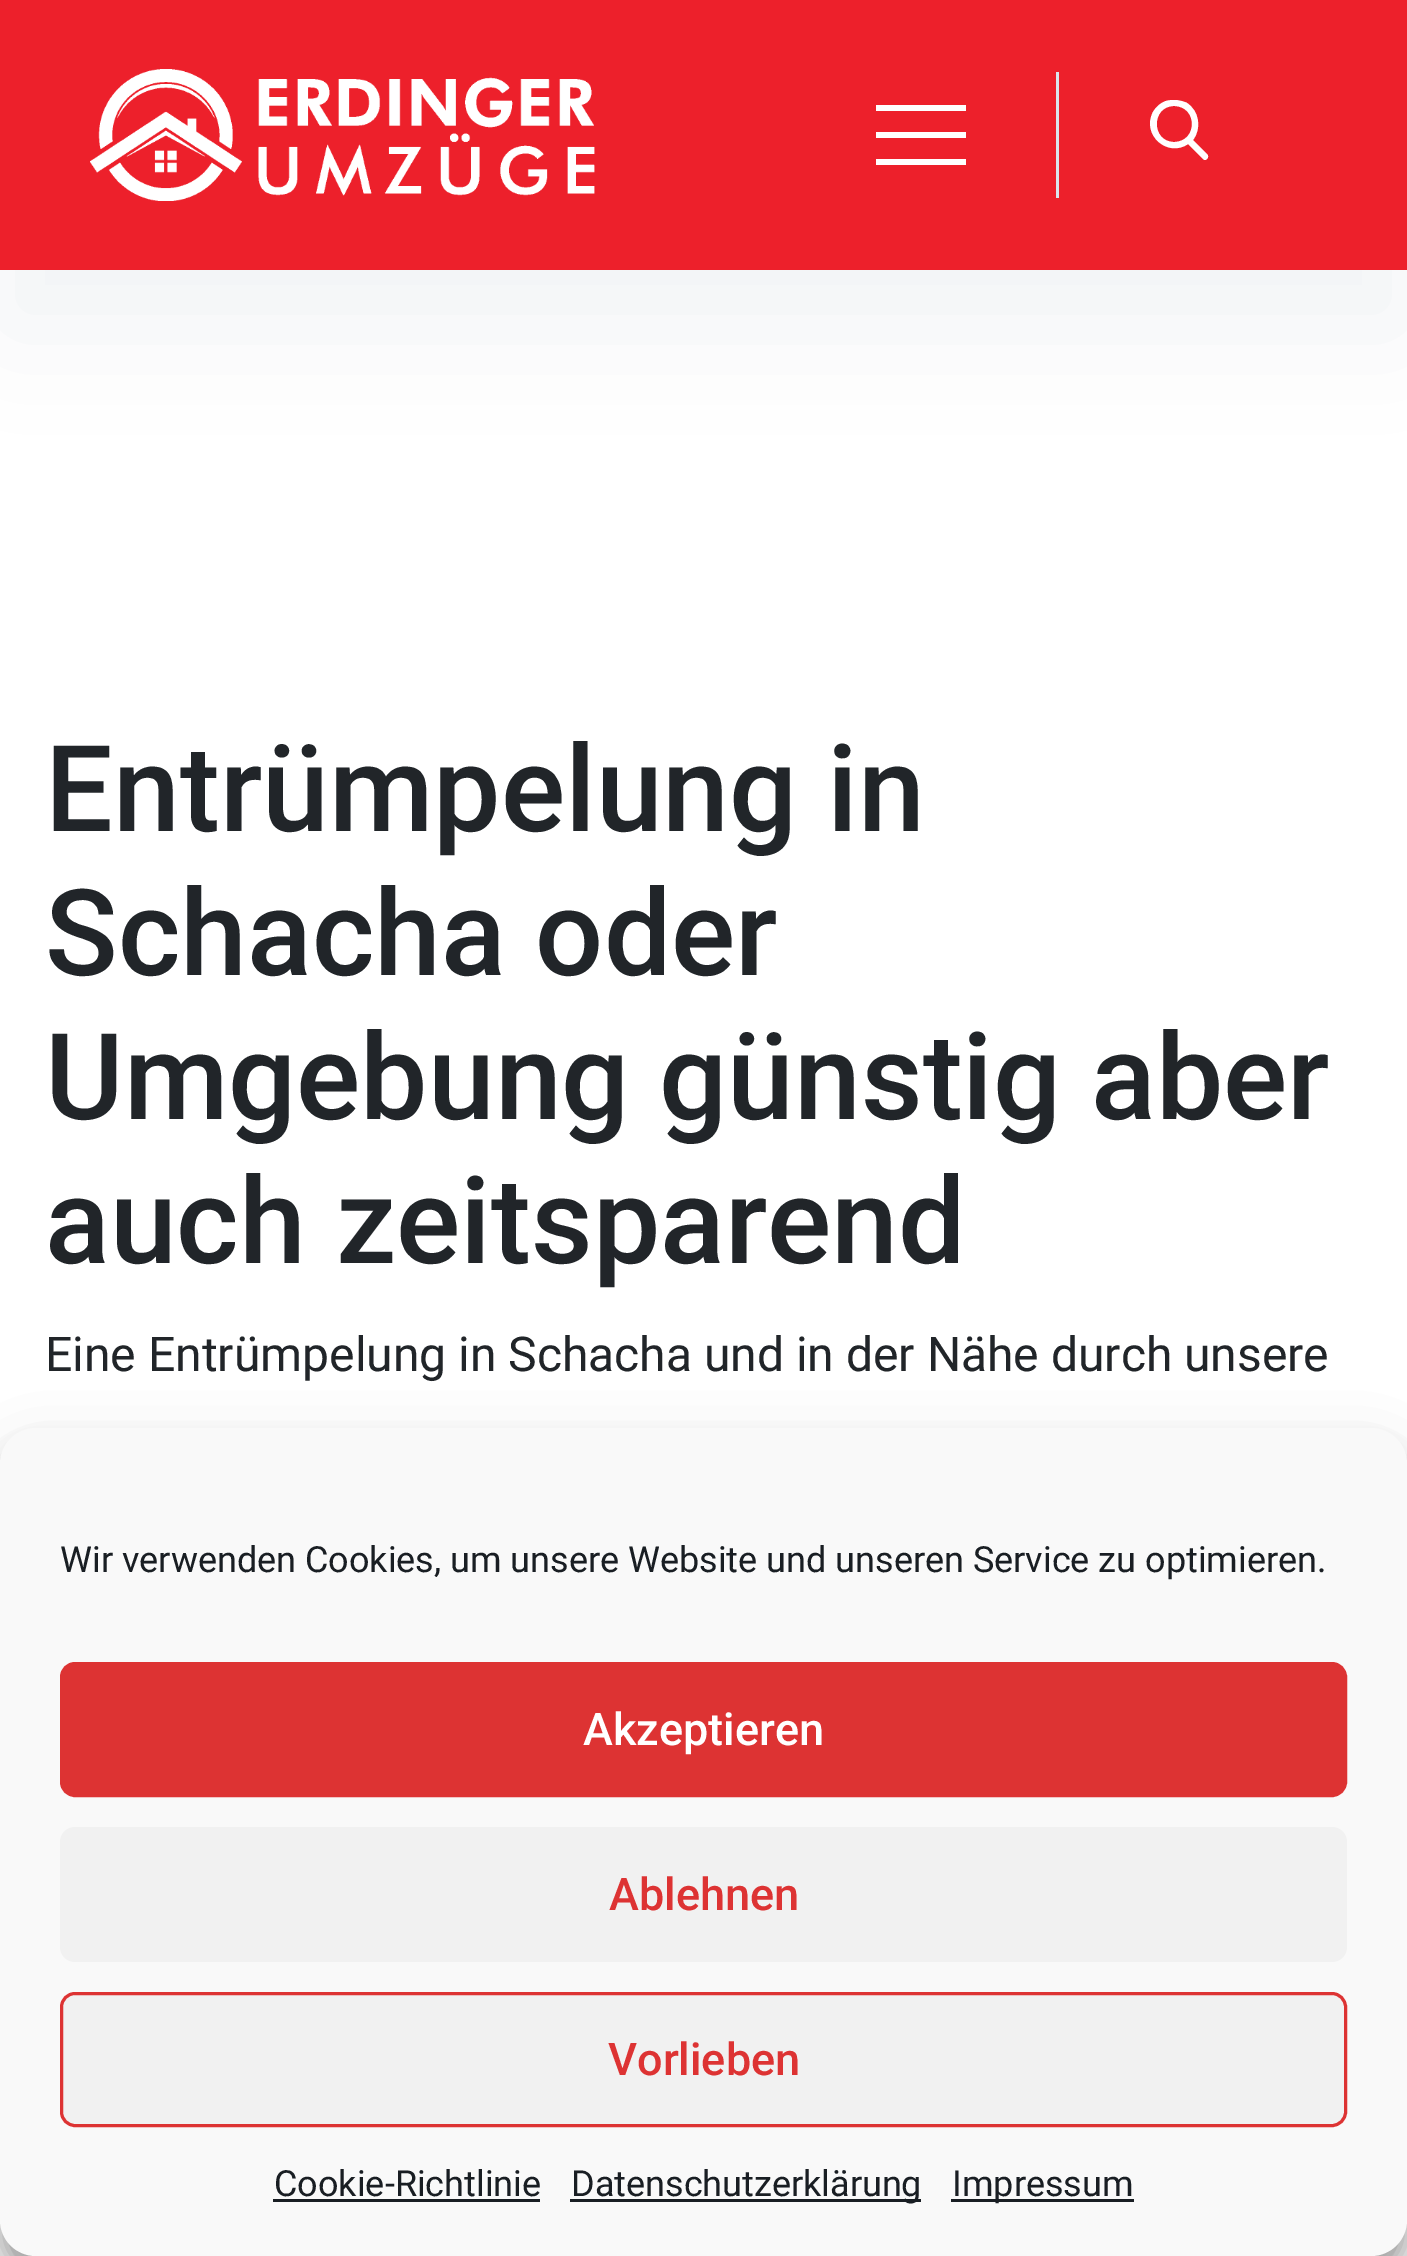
%!PS-Adobe-3.0
%%BoundingBox: 0 0 1407 2256
%%LanguageLevel: 3
%%Pages: 1
%%EndComments
%%BeginProlog
/m { moveto } bind def
/l { lineto } bind def
/c { curveto } bind def
/h { closepath } bind def
/f { fill } bind def
/S { stroke } bind def
/q { gsave } bind def
/Q { grestore } bind def
/w { setlinewidth } bind def
/fn { [ exch dup neg 0 0 3 -1 roll 0 0 ] selectfont } def
/tx { moveto show } def
/bx { rectfill } def
/al { dup .setfillconstantalpha .setstrokeconstantalpha } def
/rr { 5 dict begin { /r /h /w /y /x } { exch def } forall
  x r add y moveto x w add y 2 copy h add r arct x w add y h add x 1 index r arct
  x y h add x y r arct x y 2 copy exch w add exch r arct closepath end } def
/sh { 12 dict begin { /a /b /q /h /w /y /x } { exch def } forall gsave /was 0 def
  9 -2 -9 { dup b mul 4 div /e exch def 1 sub .425 mul 2.718 exch exp 1 add a .99 .min exch div /now exch def
    1 1 now sub 1 was sub div sub al /was now def
    w h .min e 2 mul add 0 gt { x e sub y e sub w e 2 mul add h e 2 mul add
      q e add b .6 mul add w h .min 2 div e add .min 0 .max rr fill } if } for grestore end } def
/im { 5 dict begin { /h /w /y /x /name } { exch def } forall
  gsave x y translate w h scale
  w h 8 [w 0 0 h 0 0] name (r) file false 3 colorimage grestore end } def
%%EndProlog
%%BeginSetup
<< /PageSize [1407 2256] /PageUsesTransparency true >> setpagedevice
%%EndSetup
%%Page: 1 1
0 .pushpdf14devicefilter
0 2256 translate 1 -1 scale
4 setmiterlimit
1 setgray
0 0 1407 2256 bx
0.09 0.153 0.275 setrgbcolor
0 60 1407 270 0 60 0.05 sh
0.929 0.125 0.169 setrgbcolor
0 0 1407 270 bx
(image0.raw) 90 69 505 132 im
1 setgray
876 105 90 6 bx
876 132 90 6 bx
876 159 90 6 bx
0.855 0.898 0.925 setrgbcolor
1056 72 3 126 bx
1 setgray
1207 154 m 1193 140 l 1202 128 1199 111 1187 103 c 1181 100 1173 99 1166 101 c 1160 103 1156 107 1153 112 c 1141 135 1168 158 1188 144 c 1203 159 l 1206 162 1210 157 1207 154 c h 1174 106 m 1198 106 1198 142 1174 142 c 1151 142 1151 106 1174 106 c h f
/Roboto-Medium 120 fn
0.129 0.145 0.161 setrgbcolor
(Entrümpelung in) 45 831 tx
(Schacha oder) 45 975 tx
(Umgebung günstig aber) 45 1119 tx
(auch zeitsparend) 45 1263 tx
/Roboto-Regular 48 fn
(Eine Entrümpelung in Schacha und in der Nähe durch unsere) 45 1371 tx
0 setgray
0 1446 1407 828 36 9 0.23 sh
0 1458 1407 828 36 30 0.19 sh
0.976 setgray
0 1428 1407 828 36 rr f
/Roboto-Regular 36 fn
0.098 0.118 0.137 setrgbcolor
(Wir verwenden Cookies, um unsere Website und unseren Service zu optimieren.) 60 1572 tx
0.867 0.2 0.2 setrgbcolor
61.5 1663.5 1284 132 13.5 rr q f Q
3 w
S
/Roboto-Medium 45 fn
1 setgray
(Akzeptieren) 583 1745 tx
0.945 setgray
60 1827 1287 135 15 rr f
0.867 0.2 0.2 setrgbcolor
(Ablehnen) 609 1910 tx
0.945 setgray
61.5 1993.5 1284 132 13.5 rr q f Q
0.867 0.2 0.2 setrgbcolor
S
(Vorlieben) 608 2075 tx
/Roboto-Regular 36 fn
0.098 0.118 0.137 setrgbcolor
(Cookie-Richtlinie) 274 2196 tx
273 2199 267 3 bx
570 2199 351 3 bx
(Datenschutzerklärung) 571 2196 tx
951 2199 183 3 bx
(Impressum) 952 2196 tx
.poppdf14devicefilter showpage
%%EOF
